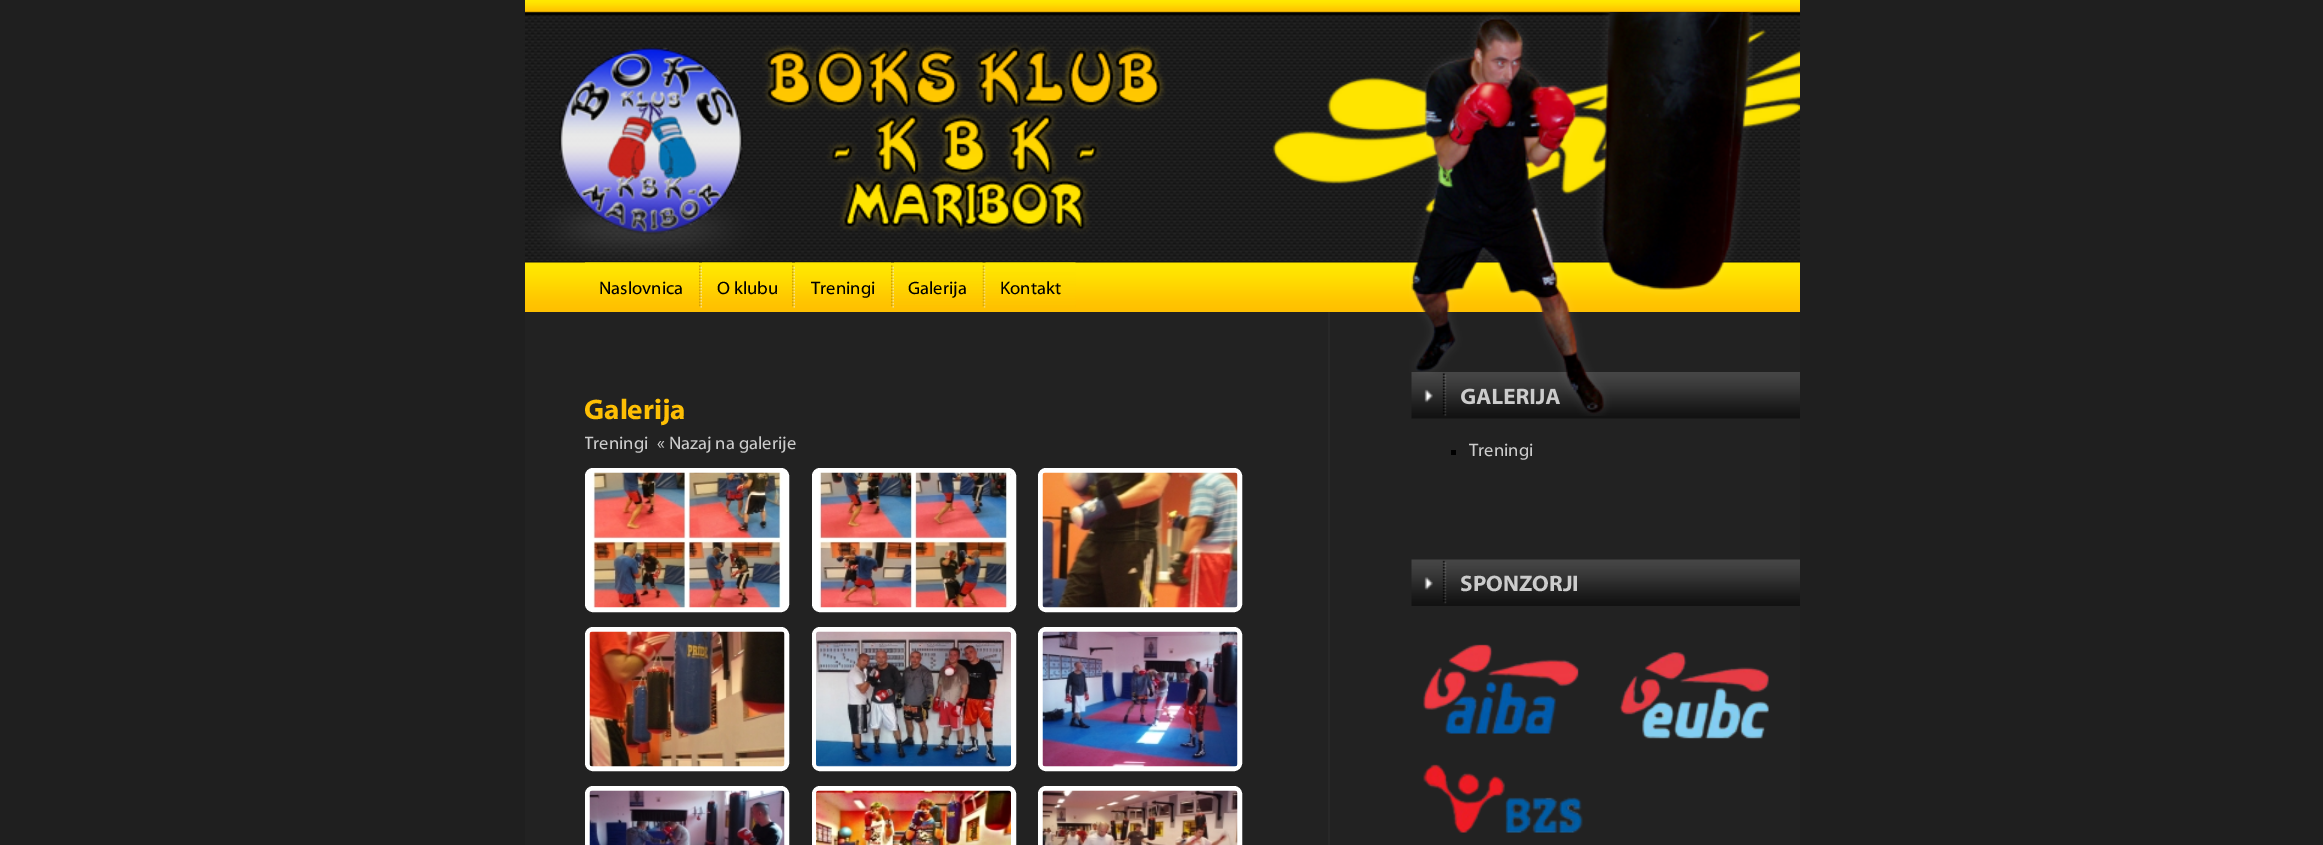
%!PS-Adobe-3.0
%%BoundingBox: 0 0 2323 845
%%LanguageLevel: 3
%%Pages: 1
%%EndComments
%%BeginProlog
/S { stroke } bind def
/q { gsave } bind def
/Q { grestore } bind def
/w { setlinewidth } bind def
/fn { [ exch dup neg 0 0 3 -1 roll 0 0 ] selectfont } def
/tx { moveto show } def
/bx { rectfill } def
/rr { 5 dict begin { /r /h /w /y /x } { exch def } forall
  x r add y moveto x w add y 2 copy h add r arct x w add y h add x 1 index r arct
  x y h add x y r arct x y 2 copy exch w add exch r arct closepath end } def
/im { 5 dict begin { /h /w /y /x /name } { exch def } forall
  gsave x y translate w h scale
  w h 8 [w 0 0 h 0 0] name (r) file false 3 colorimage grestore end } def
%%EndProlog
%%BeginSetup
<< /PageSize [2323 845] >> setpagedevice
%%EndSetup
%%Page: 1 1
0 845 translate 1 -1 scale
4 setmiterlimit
0.122 setgray
0 0 2323 845 bx
(image0.raw) 525 0 1275 261 im
(image2.raw) 525 261 1275 51 im
0.133 setgray
525 312 1275 533 bx
(image16.raw) 1411 372 389 47 im
/Myriad-Bold 22.5 fn
0.8 setgray
(GALERIJA) 1460 404 tx
(image1.raw) 1409 12 344 404 im
(image3.raw) 699 265 3 43 im
0.765 0.698 0.02 setrgbcolor
585 262 114 1 bx
/Myriad-Regular 18 fn
0 setgray
(Naslovnica) 599 294 tx
(image3.raw) 792 265 3 43 im
0.765 0.698 0.02 setrgbcolor
702 262 90 1 bx
0 setgray
(O klubu) 717 294 tx
(image3.raw) 891 265 3 43 im
0.765 0.698 0.02 setrgbcolor
795 262 96 1 bx
0 setgray
(Treningi) 811 294 tx
(image4.raw) 982 265 4 43 im
(image5.raw) 894 262 89 44 im
(Galerija) 908 294 tx
(image6.raw) 985 262 91 46 im
(Kontakt) 1000 294 tx
0.157 setgray
1328 312 2 533 bx
/Myriad-Bold 28.5 fn
0.996 0.749 0.016 setrgbcolor
(Galerija) 584 419 tx
q
585 434 705 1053 rectclip
/Myriad-Regular 18 fn
0.8 setgray
(Treningi) 584 449 tx
Q
/Myriad-Regular 18 fn
0.8 setgray
(« Nazaj na galerije) 657 449 tx
1 setgray
5 w
587.5 470.5 199 139 5.5 rr S
(image7.raw) 590 472 194 136 im
814.5 470.5 199 139 5.5 rr S
(image8.raw) 817 472 194 136 im
1040.5 470.5 199 139 5.5 rr S
(image9.raw) 1042 472 196 136 im
587.5 629.5 199 139 5.5 rr S
(image10.raw) 589 631 196 136 im
814.5 629.5 199 139 5.5 rr S
(image11.raw) 816 631 195 136 im
1040.5 629.5 199 139 5.5 rr S
(image12.raw) 1042 631 196 136 im
587.5 788.5 199 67 5.5 rr S
(image13.raw) 589 790 196 55 im
814.5 788.5 199 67 5.5 rr S
(image14.raw) 816 790 195 55 im
1040.5 788.5 199 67 5.5 rr S
(image15.raw) 1042 790 196 55 im
0 setgray
1451 450 5 5 bx
0.8 setgray
(Treningi) 1469 456 tx
(image17.raw) 1411 559 389 47 im
/Myriad-Bold 22.5 fn
(SPONZORJI) 1460 591 tx
(image18.raw) 1423 644 156 90 im
(image19.raw) 1619 652 150 87 im
(image20.raw) 1423 764 160 69 im
showpage
%%EOF
